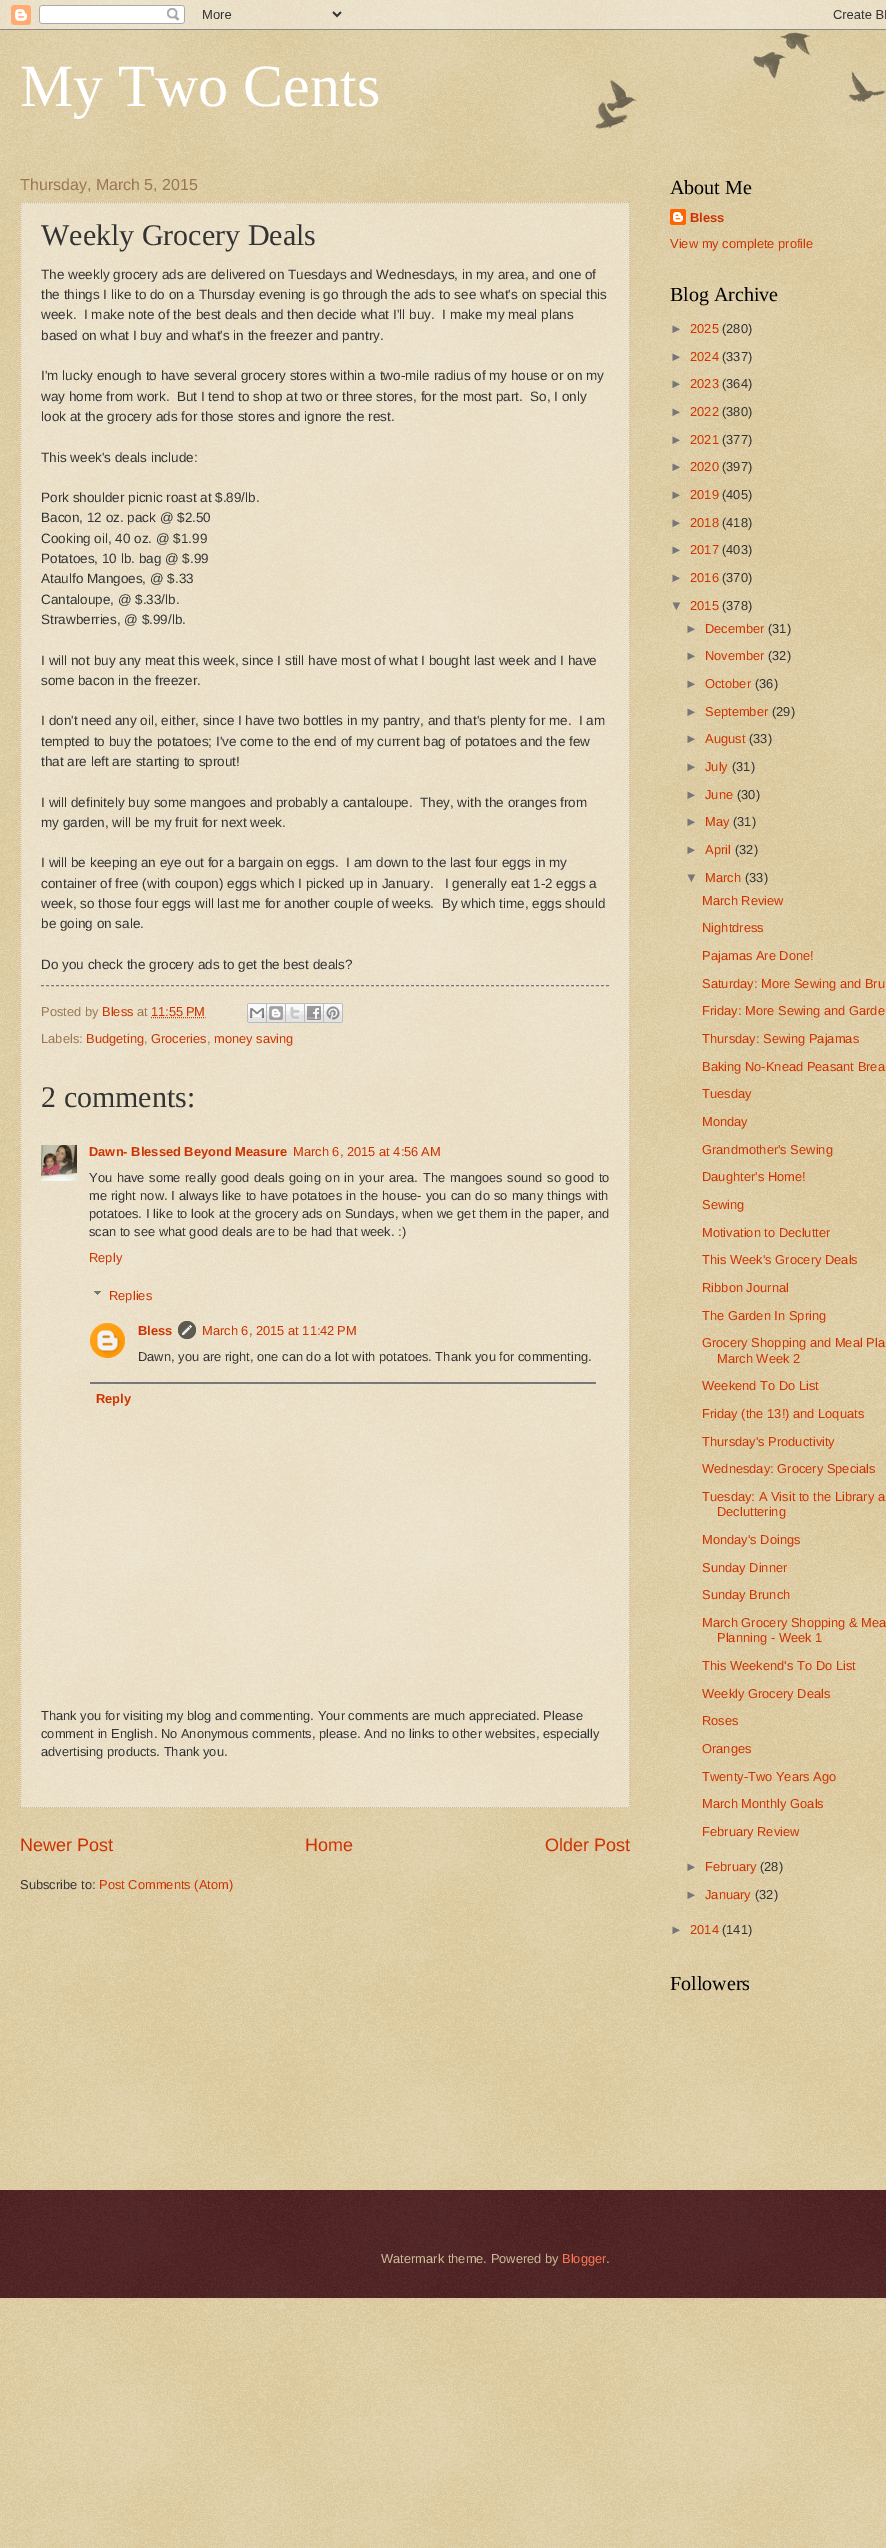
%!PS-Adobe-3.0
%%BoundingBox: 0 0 886 2548
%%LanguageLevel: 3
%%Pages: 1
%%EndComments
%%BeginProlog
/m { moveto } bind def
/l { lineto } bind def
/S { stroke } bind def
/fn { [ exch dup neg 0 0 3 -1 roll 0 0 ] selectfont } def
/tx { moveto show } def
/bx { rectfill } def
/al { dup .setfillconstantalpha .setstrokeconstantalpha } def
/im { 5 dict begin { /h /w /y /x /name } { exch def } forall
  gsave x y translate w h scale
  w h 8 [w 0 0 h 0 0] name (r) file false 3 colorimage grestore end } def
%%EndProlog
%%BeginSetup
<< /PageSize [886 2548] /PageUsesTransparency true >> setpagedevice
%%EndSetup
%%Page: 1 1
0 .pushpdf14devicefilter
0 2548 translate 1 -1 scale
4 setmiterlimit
0.753 0.631 0.329 setrgbcolor
0 0 886 2548 bx
(image0.raw) 0 0 886 2548 im
(image1.raw) 0 0 886 30 im
(image2.raw) 595 32 291 97 im
/LiberationSerif-Regular 60 fn
1 setgray
(My Two Cents) 20 106 tx
/LiberationSans-Regular 16 fn
0.6 0.467 0.333 setrgbcolor
(Thursday, March 5, 2015) 20 190 tx
0.4 al
1 setgray
20 202 610 1606 bx
1 al
0.8 0.733 0.6 setrgbcolor
[1 1] 0 setdash
20 202.5 m 630 202.5 l S
629.5 202 m 629.5 1808 l S
20 1807.5 m 630 1807.5 l S
20.5 202 m 20.5 1808 l S
/LiberationSerif-Regular 30 fn
0.2 setgray
(Weekly Grocery Deals) 41 245 tx
/LiberationSans-Regular 13.5 fn
(The weekly grocery ads are delivered on Tuesdays and Wednesdays, in my area, and one of) 41 279 tx
(the things I like to do on a Thursday evening is go through the ads to see what's on special this) 41 299 tx
(week.  I make note of the best deals and then decide what I'll buy.  I make my meal plans) 41 319 tx
(based on what I buy and what's in the freezer and pantry.) 41 340 tx
(I'm lucky enough to have several grocery stores within a two-mile radius of my house or on my) 41 380 tx
(way home from work.  But I tend to shop at two or three stores, for the most part.  So, I only) 41 401 tx
(look at the grocery ads for those stores and ignore the rest.) 41 421 tx
(This week's deals include:) 41 462 tx
(Pork shoulder picnic roast at $.89/lb.) 41 502 tx
(Bacon, 12 oz. pack @ $2.50) 41 522 tx
(Cooking oil, 40 oz. @ $1.99) 41 543 tx
(Potatoes, 10 lb. bag @ $.99) 41 563 tx
(Ataulfo Mangoes, @ $.33) 41 583 tx
(Cantaloupe, @ $.33/lb.) 41 604 tx
(Strawberries, @ $.99/lb.) 41 624 tx
(I will not buy any meat this week, since I still have most of what I bought last week and I have) 41 665 tx
(some bacon in the freezer.) 41 685 tx
(I don't need any oil, either, since I have two bottles in my pantry, and that's plenty for me.  I am) 41 725 tx
(tempted to buy the potatoes; I've come to the end of my current bag of potatoes and the few) 41 746 tx
(that are left are starting to sprout!) 41 766 tx
(I will definitely buy some mangoes and probably a cantaloupe.  They, with the oranges from) 41 807 tx
(my garden, will be my fruit for next week.) 41 827 tx
(I will be keeping an eye out for a bargain on eggs.  I am down to the last four eggs in my) 41 867 tx
(container of free \(with coupon\) eggs which I picked up in January.   I generally eat 1-2 eggs a) 41 888 tx
(week, so those four eggs will last me for another couple of weeks.  By which time, eggs should) 41 908 tx
(be going on sale.) 41 928 tx
(Do you check the grocery ads to get the best deals?) 41 969 tx
0.467 setgray
[3 2] 0 setdash
41 985.5 m 609 985.5 l S
/LiberationSans-Regular 12.9 fn
0.6 0.467 0.333 setrgbcolor
(Posted by) 41 1016 tx
0.8 0.2 0 setrgbcolor
(Bless) 102 1016 tx
0.6 0.467 0.333 setrgbcolor
(at) 137 1016 tx
0.8 0.2 0 setrgbcolor
(11:55 PM) 151 1016 tx
[1 1] 0 setdash
151 1017.5 m 205.5 1017.5 l S
(image3.raw) 247 1003 20 20 im
(image4.raw) 267 1003 19 20 im
(image5.raw) 286 1003 19 20 im
(image6.raw) 305 1003 19 20 im
(image7.raw) 324 1003 19 20 im
0.6 0.467 0.333 setrgbcolor
(Labels:) 41 1043 tx
0.8 0.2 0 setrgbcolor
(Budgeting) 86 1043 tx
0.6 0.467 0.333 setrgbcolor
(,) 144 1043 tx
0.8 0.2 0 setrgbcolor
(Groceries) 151 1043 tx
0.6 0.467 0.333 setrgbcolor
(,) 207 1043 tx
0.8 0.2 0 setrgbcolor
(money saving) 214 1043 tx
/LiberationSerif-Regular 30 fn
0.2 setgray
(2 comments:) 41 1107 tx
(image8.raw) 41 1145 36 36 im
/LiberationSans-Bold 12.9 fn
0.8 0.2 0 setrgbcolor
(Dawn- Blessed Beyond Measure) 89 1156 tx
/LiberationSans-Regular 12.9 fn
(March 6, 2015 at 4:56 AM) 293 1156 tx
0.2 setgray
89 1182 m 1 0 32 (You have some really good deals going on in your area.) widthshow
423 1182 m 1 0 32 (The mangoes sound so good to) widthshow
89 1200 m 0.5 0 32 (me right now.) widthshow
171 1200 m 0.5 0 32 (I always like to have potatoes in the house- you can do so many things with) widthshow
(potatoes.) 89 1218 tx
146 1218 m 0.25 0 32 (I like to look at the grocery ads on Sundays, when we get them in the paper, and) widthshow
(scan to see what good deals are to be had that week. :\)) 89 1236 tx
0.8 0.2 0 setrgbcolor
(Reply) 89 1262 tx
(image9.raw) 94 1291 7 4 im
(Replies) 109 1300 tx
(image10.raw) 90 1323 35 35 im
/LiberationSans-Bold 12.9 fn
(Bless) 138 1335 tx
(image11.raw) 178 1321 18 18 im
/LiberationSans-Regular 12.9 fn
(March 6, 2015 at 11:42 PM) 202 1335 tx
0.2 setgray
(Dawn, you are right, one can do a lot with potatoes. Thank you for commenting.) 138 1361 tx
0.467 setgray
90 1382 506 2 bx
/LiberationSans-Bold 12.9 fn
0.8 0.2 0 setrgbcolor
(Reply) 96 1403 tx
/LiberationSans-Regular 12.9 fn
0.2 setgray
(Thank you for visiting my blog and commenting. Your comments are much appreciated. Please) 41 1720 tx
(comment in English. No Anonymous comments, please. And no links to other websites, especially) 41 1738 tx
(advertising products. Thank you.) 41 1756 tx
/LiberationSans-Regular 18 fn
0.8 0.2 0 setrgbcolor
(Newer Post) 20 1851 tx
(Home) 305 1851 tx
(Older Post) 545 1851 tx
/LiberationSans-Regular 12.9 fn
0.2 setgray
(Subscribe to:) 20 1889 tx
0.8 0.2 0 setrgbcolor
(Post Comments \(Atom\)) 99 1889 tx
/LiberationSerif-Regular 20 fn
0 setgray
(About Me) 670 194 tx
(image12.raw) 670 209 16 16 im
/LiberationSans-Bold 12.9 fn
0.8 0.2 0 setrgbcolor
(Bless) 690 222 tx
/LiberationSans-Regular 12.9 fn
(View my complete profile) 670 248 tx
/LiberationSerif-Regular 20 fn
0 setgray
(Blog Archive) 670 301 tx
/LiberationSans-Regular 12.9 fn
0.467 setgray
(►) 670 333 tx
0.8 0.2 0 setrgbcolor
(2025) 690 333 tx
0.2 setgray
(\(280\)) 722 333 tx
0.467 setgray
(►) 670 361 tx
0.8 0.2 0 setrgbcolor
(2024) 690 361 tx
0.2 setgray
(\(337\)) 722 361 tx
0.467 setgray
(►) 670 388 tx
0.8 0.2 0 setrgbcolor
(2023) 690 388 tx
0.2 setgray
(\(364\)) 722 388 tx
0.467 setgray
(►) 670 416 tx
0.8 0.2 0 setrgbcolor
(2022) 690 416 tx
0.2 setgray
(\(380\)) 722 416 tx
0.467 setgray
(►) 670 444 tx
0.8 0.2 0 setrgbcolor
(2021) 690 444 tx
0.2 setgray
(\(377\)) 722 444 tx
0.467 setgray
(►) 670 471 tx
0.8 0.2 0 setrgbcolor
(2020) 690 471 tx
0.2 setgray
(\(397\)) 722 471 tx
0.467 setgray
(►) 670 499 tx
0.8 0.2 0 setrgbcolor
(2019) 690 499 tx
0.2 setgray
(\(405\)) 722 499 tx
0.467 setgray
(►) 670 527 tx
0.8 0.2 0 setrgbcolor
(2018) 690 527 tx
0.2 setgray
(\(418\)) 722 527 tx
0.467 setgray
(►) 670 554 tx
0.8 0.2 0 setrgbcolor
(2017) 690 554 tx
0.2 setgray
(\(403\)) 722 554 tx
0.467 setgray
(►) 670 582 tx
0.8 0.2 0 setrgbcolor
(2016) 690 582 tx
0.2 setgray
(\(370\)) 722 582 tx
0.467 setgray
(▼) 670 610 tx
0.8 0.2 0 setrgbcolor
(2015) 690 610 tx
0.2 setgray
(\(378\)) 722 610 tx
0.467 setgray
(►) 685 633 tx
0.8 0.2 0 setrgbcolor
(December) 705 633 tx
0.2 setgray
(\(31\)) 768 633 tx
0.467 setgray
(►) 685 660 tx
0.8 0.2 0 setrgbcolor
(November) 705 660 tx
0.2 setgray
(\(32\)) 768 660 tx
0.467 setgray
(►) 685 688 tx
0.8 0.2 0 setrgbcolor
(October) 705 688 tx
0.2 setgray
(\(36\)) 755 688 tx
0.467 setgray
(►) 685 716 tx
0.8 0.2 0 setrgbcolor
(September) 705 716 tx
0.2 setgray
(\(29\)) 772 716 tx
0.467 setgray
(►) 685 743 tx
0.8 0.2 0 setrgbcolor
(August) 705 743 tx
0.2 setgray
(\(33\)) 749 743 tx
0.467 setgray
(►) 685 771 tx
0.8 0.2 0 setrgbcolor
(July) 705 771 tx
0.2 setgray
(\(31\)) 732 771 tx
0.467 setgray
(►) 685 799 tx
0.8 0.2 0 setrgbcolor
(June) 705 799 tx
0.2 setgray
(\(30\)) 737 799 tx
0.467 setgray
(►) 685 826 tx
0.8 0.2 0 setrgbcolor
(May) 705 826 tx
0.2 setgray
(\(31\)) 733 826 tx
0.467 setgray
(►) 685 854 tx
0.8 0.2 0 setrgbcolor
(April) 705 854 tx
0.2 setgray
(\(32\)) 735 854 tx
0.467 setgray
(▼) 685 882 tx
0.8 0.2 0 setrgbcolor
(March) 705 882 tx
0.2 setgray
(\(33\)) 745 882 tx
0.8 0.2 0 setrgbcolor
(March Review) 702 905 tx
(Nightdress) 702 932 tx
(Pajamas Are Done!) 702 960 tx
(Saturday: More Sewing and Bru) 702 988 tx
(Friday: More Sewing and Garde) 702 1015 tx
(Thursday: Sewing Pajamas) 702 1043 tx
(Baking No-Knead Peasant Brea) 702 1071 tx
(Tuesday) 702 1098 tx
(Monday) 702 1126 tx
(Grandmother's Sewing) 702 1154 tx
(Daughter's Home!) 702 1181 tx
(Sewing) 702 1209 tx
(Motivation to Declutter) 702 1237 tx
(This Week's Grocery Deals) 702 1264 tx
(Ribbon Journal) 702 1292 tx
(The Garden In Spring) 702 1320 tx
(Grocery Shopping and Meal Pla) 702 1347 tx
(March Week 2) 717 1363 tx
(Weekend To Do List) 702 1390 tx
(Friday \(the 13!\) and Loquats) 702 1418 tx
(Thursday's Productivity) 702 1446 tx
(Wednesday: Grocery Specials) 702 1473 tx
(Tuesday: A Visit to the Library a) 702 1501 tx
(Decluttering) 717 1516 tx
(Monday's Doings) 702 1544 tx
(Sunday Dinner) 702 1572 tx
(Sunday Brunch) 702 1599 tx
(March Grocery Shopping & Mea) 702 1627 tx
(Planning - Week 1) 717 1642 tx
(This Weekend's To Do List) 702 1670 tx
(Weekly Grocery Deals) 702 1698 tx
(Roses) 702 1725 tx
(Oranges) 702 1753 tx
(Twenty-Two Years Ago) 702 1781 tx
(March Monthly Goals) 702 1808 tx
(February Review) 702 1836 tx
0.467 setgray
(►) 685 1871 tx
0.8 0.2 0 setrgbcolor
(February) 705 1871 tx
0.2 setgray
(\(28\)) 760 1871 tx
0.467 setgray
(►) 685 1899 tx
0.8 0.2 0 setrgbcolor
(January) 705 1899 tx
0.2 setgray
(\(32\)) 755 1899 tx
0.467 setgray
(►) 670 1934 tx
0.8 0.2 0 setrgbcolor
(2014) 690 1934 tx
0.2 setgray
(\(141\)) 722 1934 tx
/LiberationSerif-Regular 20 fn
0 setgray
(Followers) 670 1990 tx
0.2 0 0 setrgbcolor
0 2190 886 108 bx
(image13.raw) 0 2190 886 108 im
/LiberationSans-Regular 12.9 fn
0.8 0.733 0.6 setrgbcolor
(Watermark theme. Powered by) 381 2263 tx
1 0.467 0.333 setrgbcolor
(Blogger) 562 2263 tx
0.8 0.733 0.6 setrgbcolor
(.) 606 2263 tx
.poppdf14devicefilter showpage
%%EOF
